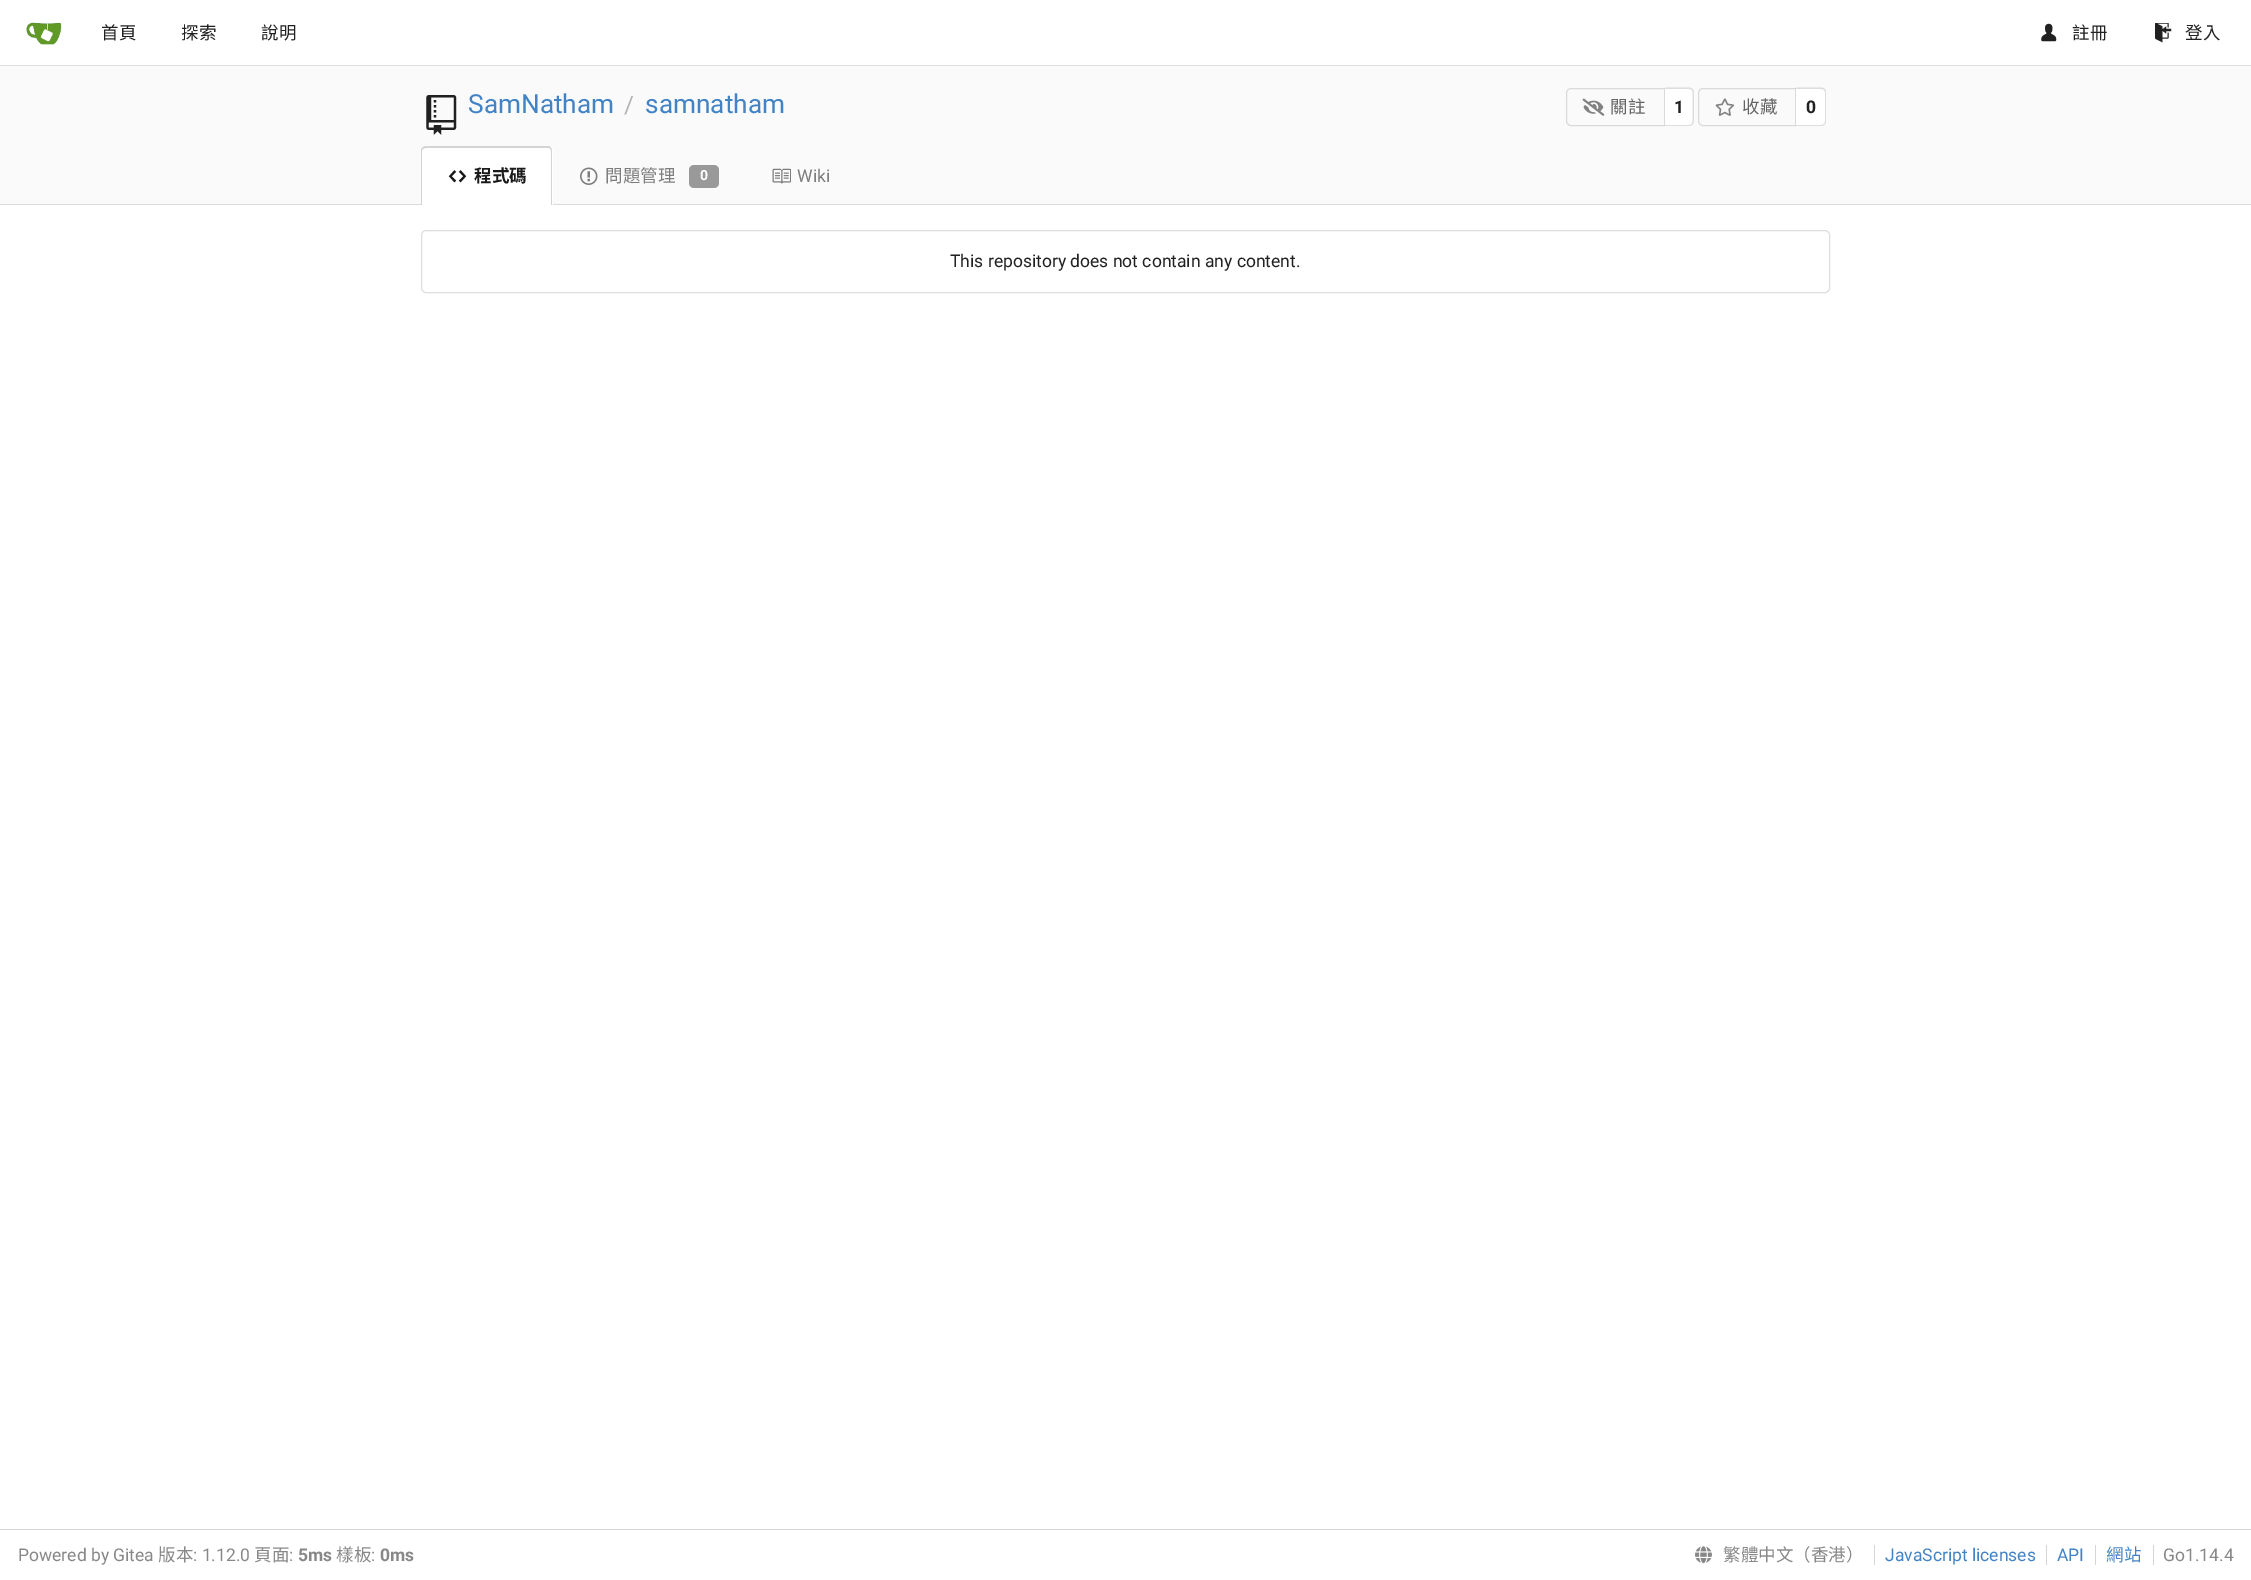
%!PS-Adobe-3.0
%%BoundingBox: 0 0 2251 1580
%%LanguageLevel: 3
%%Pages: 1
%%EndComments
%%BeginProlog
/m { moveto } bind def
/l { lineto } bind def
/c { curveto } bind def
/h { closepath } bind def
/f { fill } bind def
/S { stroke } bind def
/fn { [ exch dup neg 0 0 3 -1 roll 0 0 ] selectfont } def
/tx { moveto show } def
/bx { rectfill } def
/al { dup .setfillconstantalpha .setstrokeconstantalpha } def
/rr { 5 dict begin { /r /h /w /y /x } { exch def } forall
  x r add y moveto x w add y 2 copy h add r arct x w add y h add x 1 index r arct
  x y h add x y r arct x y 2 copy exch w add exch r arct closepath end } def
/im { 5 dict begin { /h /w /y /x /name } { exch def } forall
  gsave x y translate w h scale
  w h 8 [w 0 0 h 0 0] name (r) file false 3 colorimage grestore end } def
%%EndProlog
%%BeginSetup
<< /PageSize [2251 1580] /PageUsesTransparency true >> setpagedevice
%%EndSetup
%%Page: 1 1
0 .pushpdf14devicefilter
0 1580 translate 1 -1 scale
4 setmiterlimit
1 setgray
0 0 2251 1580 bx
0.867 setgray
0 65 2251 1 bx
(image0.raw) 26 22 36 23 im
/NotoSansCJKTC-Regular 17.5 fn
0.129 setgray
(首頁) 101 39 tx
(探索) 181 39 tx
(說明) 261 39 tx
(image1.raw) 2041 23 16 19 im
(註冊) 2072 39 tx
(image2.raw) 2155 23 17 20 im
(登入) 2185 39 tx
0.98 setgray
0 66 2251 138 bx
(image3.raw) 426 95 31 40 im
/Roboto-Regular 26.25 fn
0.255 0.514 0.769 setrgbcolor
(SamNatham) 468 113 tx
/Roboto-Regular 24 fn
0.706 setgray
(/) 624 113 tx
/Roboto-Regular 26.25 fn
0.255 0.514 0.769 setrgbcolor
(samnatham) 645 113 tx
0.855 setgray
1571 88.5 m 1664.5 88.5 l 1664.5 125.5 l 1571 125.5 l 1568.5 125.5 1566.5 123.5 1566.5 121 c 1566.5 93 l 1566.5 90.5 1568.5 88.5 1571 88.5 c h S
(image4.raw) 1582 98 23 18 im
/NotoSansCJKTC-Regular 17.5 fn
0.392 setgray
(關註) 1610 113 tx
1 setgray
1665 88 m 1689 88 l 1692 88 1694 90 1694 93 c 1694 121 l 1694 124 1692 126 1689 126 c 1665 126 l h f
0.15 al
0.133 0.141 0.149 setrgbcolor
1665 87.5 m 1689 87.5 l 1691.5 87.5 1694 89.5 1694 92.5 c 1694 121 l 1694 124 1691.5 126 1689 126 c 1665 126 l h 1665 89 m 1689 89 l 1691 89 1692.5 90.5 1692.5 92.5 c 1692.5 121 l 1692.5 123.5 1691 125 1689 125 c 1665 125 l h eofill
/Roboto-Bold 17.5 fn
1 al
0.129 setgray
(1) 1674 113 tx
0.855 setgray
1703 88.5 m 1795.5 88.5 l 1795.5 125.5 l 1703 125.5 l 1700.5 125.5 1698.5 123.5 1698.5 121 c 1698.5 93 l 1698.5 90.5 1700.5 88.5 1703 88.5 c h S
(image5.raw) 1715 98 19 18 im
/NotoSansCJKTC-Regular 17.5 fn
0.392 setgray
(收藏) 1742 113 tx
1 setgray
1796 88 m 1821 88 l 1824 88 1826 90 1826 93 c 1826 121 l 1826 124 1824 126 1821 126 c 1796 126 l h f
0.15 al
0.133 0.141 0.149 setrgbcolor
1796 87.5 m 1821 87.5 l 1824 87.5 1826 89.5 1826 92.5 c 1826 121 l 1826 124 1824 126 1821 126 c 1796 126 l h 1796 89 m 1821 89 l 1823.5 89 1825 90.5 1825 92.5 c 1825 121 l 1825 123.5 1823.5 125 1821 125 c 1796 125 l h eofill
/Roboto-Bold 17.5 fn
1 al
0.129 setgray
(0) 1806 113 tx
0.855 setgray
0 204 2251 1 bx
1 setgray
426 146 m 548 146 l 551 146 553 148 553 151 c 553 205 l 421 205 l 421 151 l 421 148 423 146 426 146 c h f
0.831 0.831 0.835 setrgbcolor
426 146 m 548 146 l 550 146 552 148 552 151 c 552 205 l 421 205 l 421 151 l 421 148 423 146 426 146 c h 426 148 m 548 148 l 550 148 551 149 551 151 c 551 205 l 422 205 l 422 151 l 422 149 424 148 426 148 c h eofill
(image6.raw) 448 170 19 13 im
/NotoSansCJKTC-Bold 17.5 fn
0.102 setgray
(程式碼) 474 182 tx
(image7.raw) 580 167 18 18 im
/NotoSansCJKTC-Regular 17.5 fn
0.49 setgray
(問題管理) 605 182 tx
0.6 setgray
689 165 30 23 5 rr f
/Roboto-Bold 14 fn
1 setgray
(0) 700 180 tx
(image8.raw) 772 168 19 16 im
/Roboto-Regular 17.5 fn
0.49 setgray
(Wiki) 797 182 tx
0.871 setgray
421.5 230.5 1408 62 4.5 rr S
0.129 setgray
(This repository does not contain any content.) 950 267 tx
0.839 setgray
0 1529 2251 1 bx
0.533 setgray
(Powered by Gitea) 18 1561 tx
/NotoSansCJKTC-Regular 17.5 fn
(版本) 158 1561 tx
/Roboto-Regular 17.5 fn
(: 1.12.0) 193 1561 tx
/NotoSansCJKTC-Regular 17.5 fn
(頁面) 254 1561 tx
/Roboto-Regular 17.5 fn
(:) 289 1561 tx
/Roboto-Bold 17.5 fn
(5ms) 298 1561 tx
/NotoSansCJKTC-Regular 17.5 fn
(樣板) 336 1561 tx
/Roboto-Regular 17.5 fn
(:) 371 1561 tx
/Roboto-Bold 17.5 fn
(0ms) 380 1561 tx
(image9.raw) 1695 1546 17 18 im
/NotoSansCJKTC-Regular 17.5 fn
(繁體中文（香港）) 1723 1561 tx
/Roboto-Regular 17.5 fn
0.255 0.514 0.769 setrgbcolor
(JavaScript licenses) 1885 1561 tx
0.839 setgray
1874 1545 1 20 bx
0.255 0.514 0.769 setrgbcolor
(API) 2057 1561 tx
0.839 setgray
2046 1545 1 20 bx
/NotoSansCJKTC-Regular 17.5 fn
0.255 0.514 0.769 setrgbcolor
(網站) 2106 1561 tx
0.839 setgray
2095 1545 1 20 bx
/Roboto-Regular 17.5 fn
0.533 setgray
(Go1.14.4) 2163 1561 tx
0.839 setgray
2153 1545 1 20 bx
.poppdf14devicefilter showpage
%%EOF
